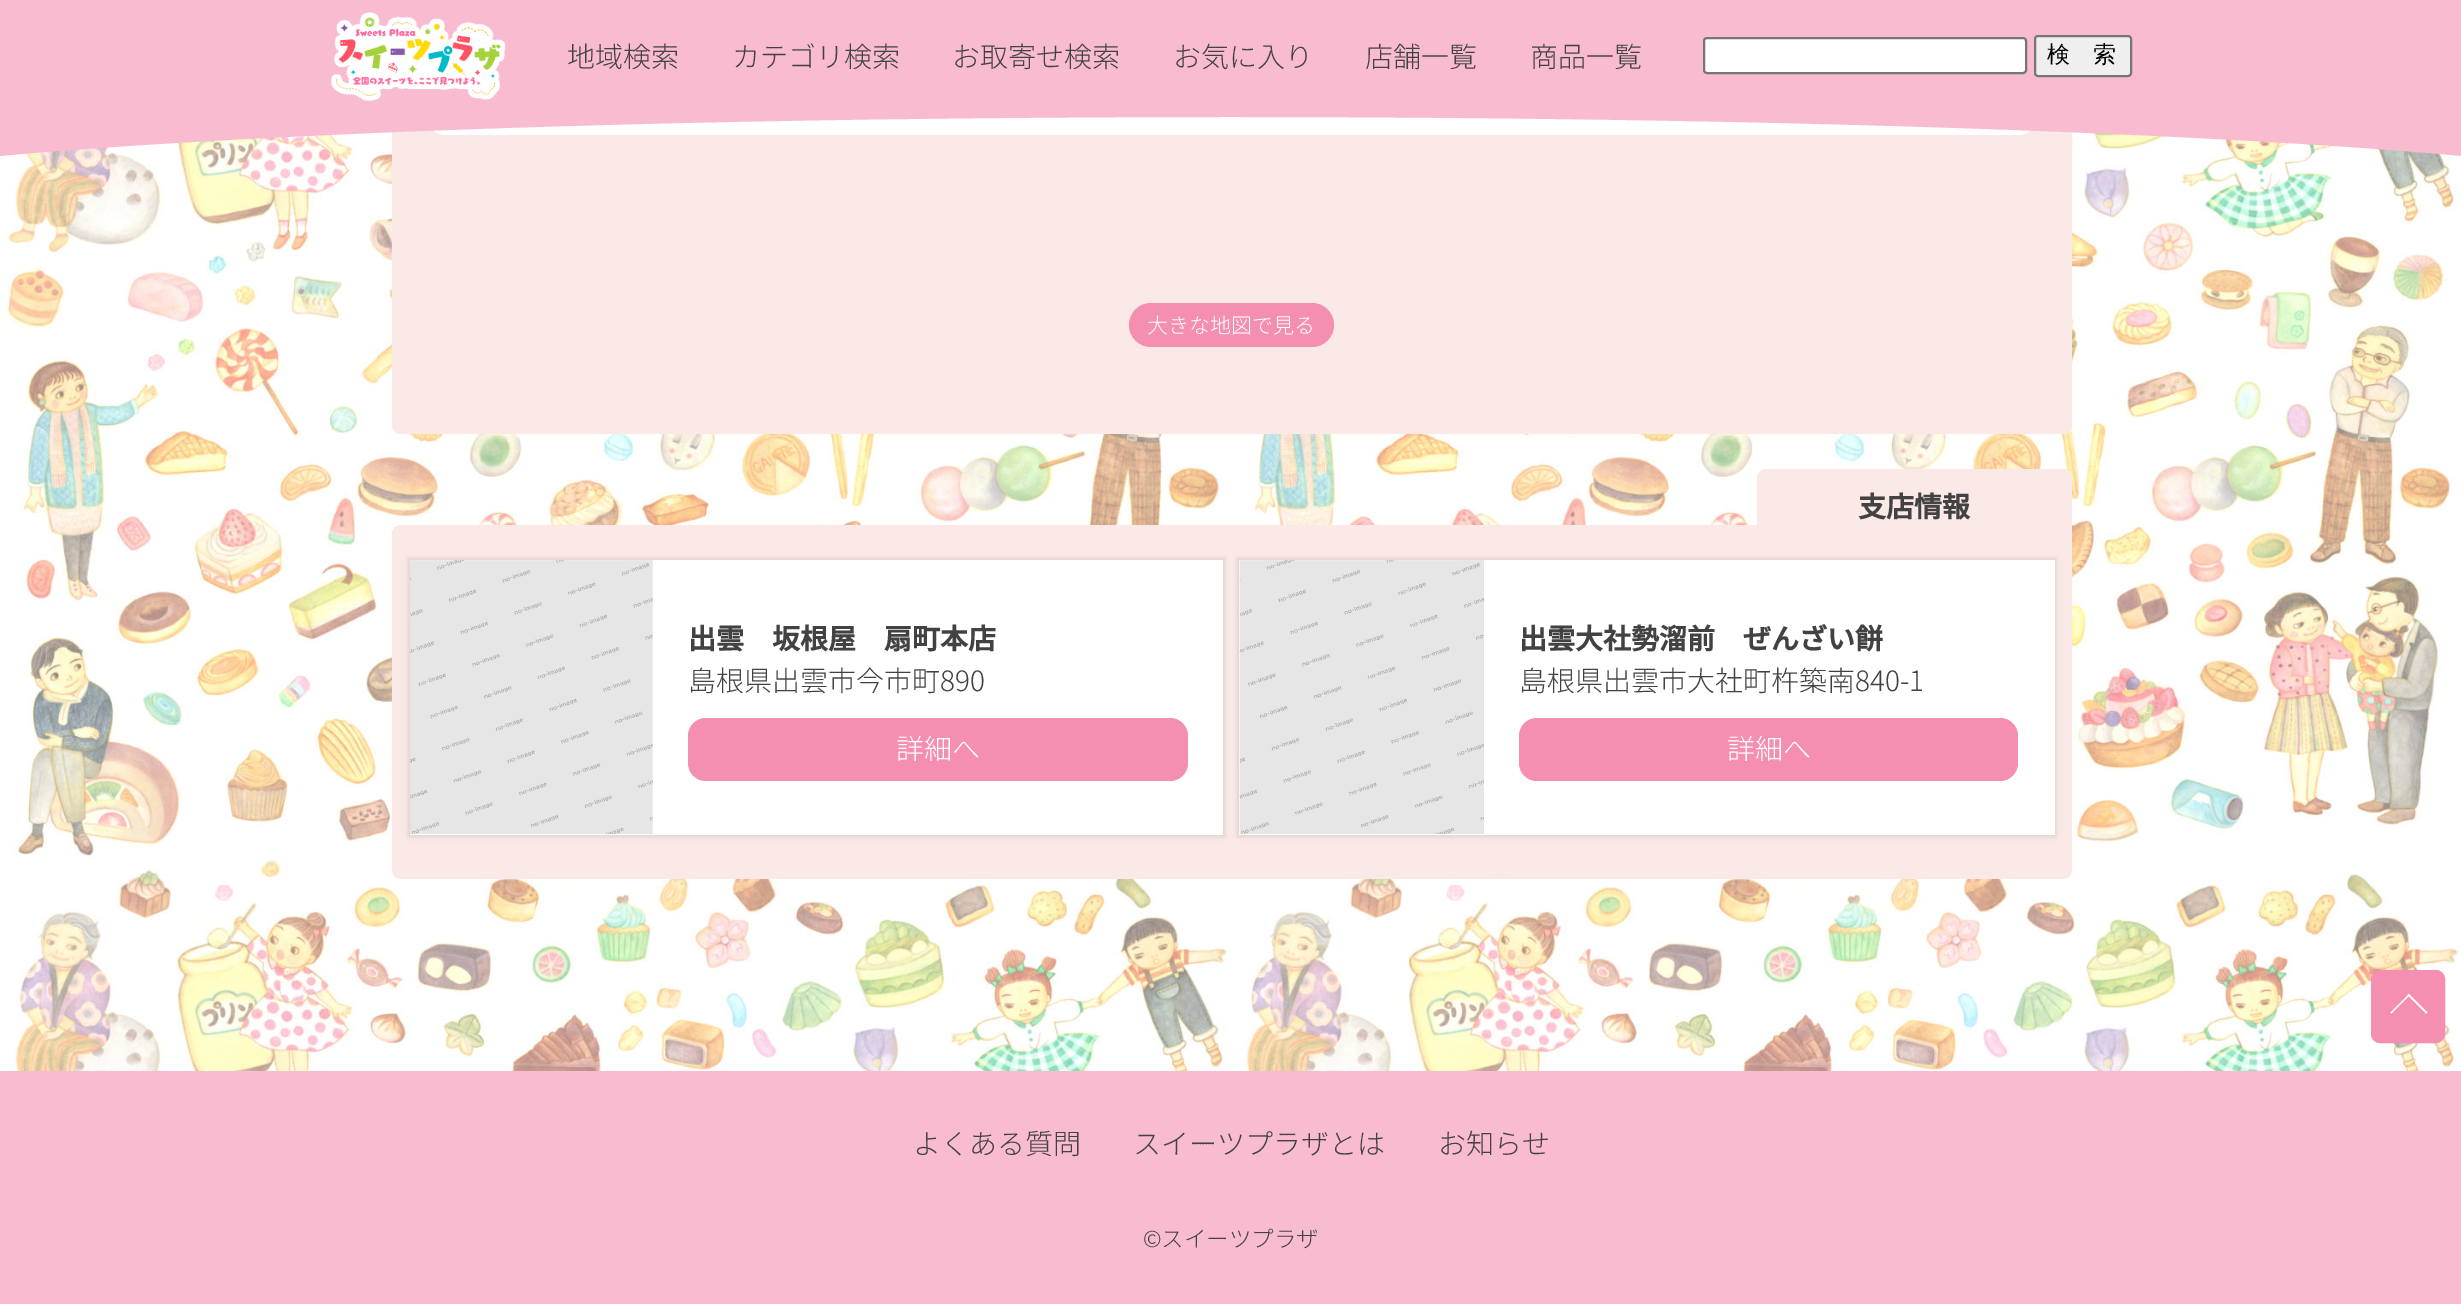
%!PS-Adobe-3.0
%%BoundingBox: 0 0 2461 1304
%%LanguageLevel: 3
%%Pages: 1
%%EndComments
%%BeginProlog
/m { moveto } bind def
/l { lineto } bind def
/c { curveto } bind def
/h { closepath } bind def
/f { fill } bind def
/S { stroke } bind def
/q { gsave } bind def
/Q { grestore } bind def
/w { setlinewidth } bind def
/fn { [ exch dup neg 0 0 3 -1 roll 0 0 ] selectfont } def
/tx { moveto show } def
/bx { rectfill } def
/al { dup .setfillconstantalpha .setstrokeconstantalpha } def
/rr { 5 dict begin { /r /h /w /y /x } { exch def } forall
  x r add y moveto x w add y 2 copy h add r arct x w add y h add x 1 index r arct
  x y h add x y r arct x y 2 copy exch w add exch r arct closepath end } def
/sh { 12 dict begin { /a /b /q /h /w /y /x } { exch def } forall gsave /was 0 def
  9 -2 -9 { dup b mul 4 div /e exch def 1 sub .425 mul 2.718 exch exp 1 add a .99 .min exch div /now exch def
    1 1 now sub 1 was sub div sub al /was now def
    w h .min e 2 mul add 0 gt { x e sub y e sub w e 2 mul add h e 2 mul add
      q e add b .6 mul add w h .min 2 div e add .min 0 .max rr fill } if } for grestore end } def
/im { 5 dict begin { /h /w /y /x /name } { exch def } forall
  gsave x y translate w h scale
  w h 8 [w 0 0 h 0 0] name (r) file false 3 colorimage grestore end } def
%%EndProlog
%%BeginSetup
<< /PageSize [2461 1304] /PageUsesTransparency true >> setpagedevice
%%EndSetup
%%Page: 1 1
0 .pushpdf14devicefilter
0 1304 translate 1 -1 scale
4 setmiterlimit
1 setgray
0 0 2461 1304 bx
(image0.raw) 6 132 2453 939 im
0.984 0.914 0.906 setrgbcolor
401 -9 m 2072 -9 l 2072 425 l 2072 430 2068 434 2063 434 c 401 434 l 396 434 392 430 392 425 c 392 0 l 392 -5 396 -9 401 -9 c h f
1 setgray
427 -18 1610 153 18 rr f
0.973 0.733 0.816 setrgbcolor
0 0 2461 105 bx
(image1.raw) 331 12 175 89 im
/NotoSansJP-Light 28 fn
0.259 setgray
(地域検索) 567 67 tx
(カテゴリ検索) 732 67 tx
(お取寄せ検索) 952 67 tx
(お気に入り) 1173 67 tx
(店舗一覧) 1365 67 tx
(商品一覧) 1530 67 tx
1 setgray
1704 38 322 35 3 rr q f Q
0.463 setgray
2 w
S
0.937 setgray
2035 36 96 40 3 rr q f Q
0.463 setgray
S
/WenQuanYiZenHei-Medium 23 fn
0 setgray
(検　索) 2047 62 tx
0.973 0.733 0.816 setrgbcolor
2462 105 m 0 105 l 0 156 l 0 156 377 117 1231 117 c 2086 117 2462 156 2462 156 c h eofill
0.957 0.561 0.694 setrgbcolor
1129 303 205 44 22 rr f
/NotoSansJP-Light 21 fn
1 setgray
(大きな地図で見る) 1147 333 tx
0.984 0.914 0.906 setrgbcolor
1766 469 m 2063 469 l 2068 469 2072 473 2072 478 c 2072 525 l 1757 525 l 1757 478 l 1757 473 1761 469 1766 469 c h f
/NotoSansJP-Bold 28 fn
0.259 setgray
(支店情報) 1858 517 tx
0.984 0.914 0.906 setrgbcolor
401 525 m 2072 525 l 2072 870 l 2072 875 2068 879 2063 879 c 401 879 l 396 879 392 875 392 870 c 392 534 l 392 529 396 525 401 525 c h f
0 setgray
408 558 817 279 0 2 0.1 sh
1 setgray
410 560 813 275 bx
(image2.raw) 410 560 243 275 im
0.259 setgray
(出雲　坂根屋　扇町本店) 688 649 tx
/NotoSansJP-Light 28 fn
(島根県出雲市今市町890) 688 691 tx
0.957 0.561 0.694 setrgbcolor
688 718 500 63 18 rr f
1 setgray
(詳細へ) 896 759 tx
0 setgray
1237 558 819 279 0 2 0.1 sh
1 setgray
1239 560 816 275 bx
(image3.raw) 1239 560 245 275 im
/NotoSansJP-Bold 28 fn
0.259 setgray
(出雲大社勢溜前　ぜんざい餅) 1519 649 tx
/NotoSansJP-Light 28 fn
(島根県出雲市大社町杵築南840-1) 1519 691 tx
0.957 0.561 0.694 setrgbcolor
1519 718 499 63 18 rr f
1 setgray
(詳細へ) 1727 759 tx
0.957 0.561 0.694 setrgbcolor
2372 971 72 71 8 rr q f Q
S
1 setgray
2390.5 1012.5 m 2409 994 l 2410 995 l 2391.5 1013.5 l h f
2407.5 995 m 2409 994 l 2427.5 1012.5 l 2426 1013.5 l h f
0.973 0.733 0.816 setrgbcolor
0 1071 2461 233 bx
0.259 setgray
(よくある質問) 913 1154 tx
(スイーツプラザとは) 1133 1154 tx
(お知らせ) 1438 1154 tx
/NotoSansJP-Light 22.5 fn
(©スイーツプラザ) 1143 1247 tx
.poppdf14devicefilter showpage
%%EOF
